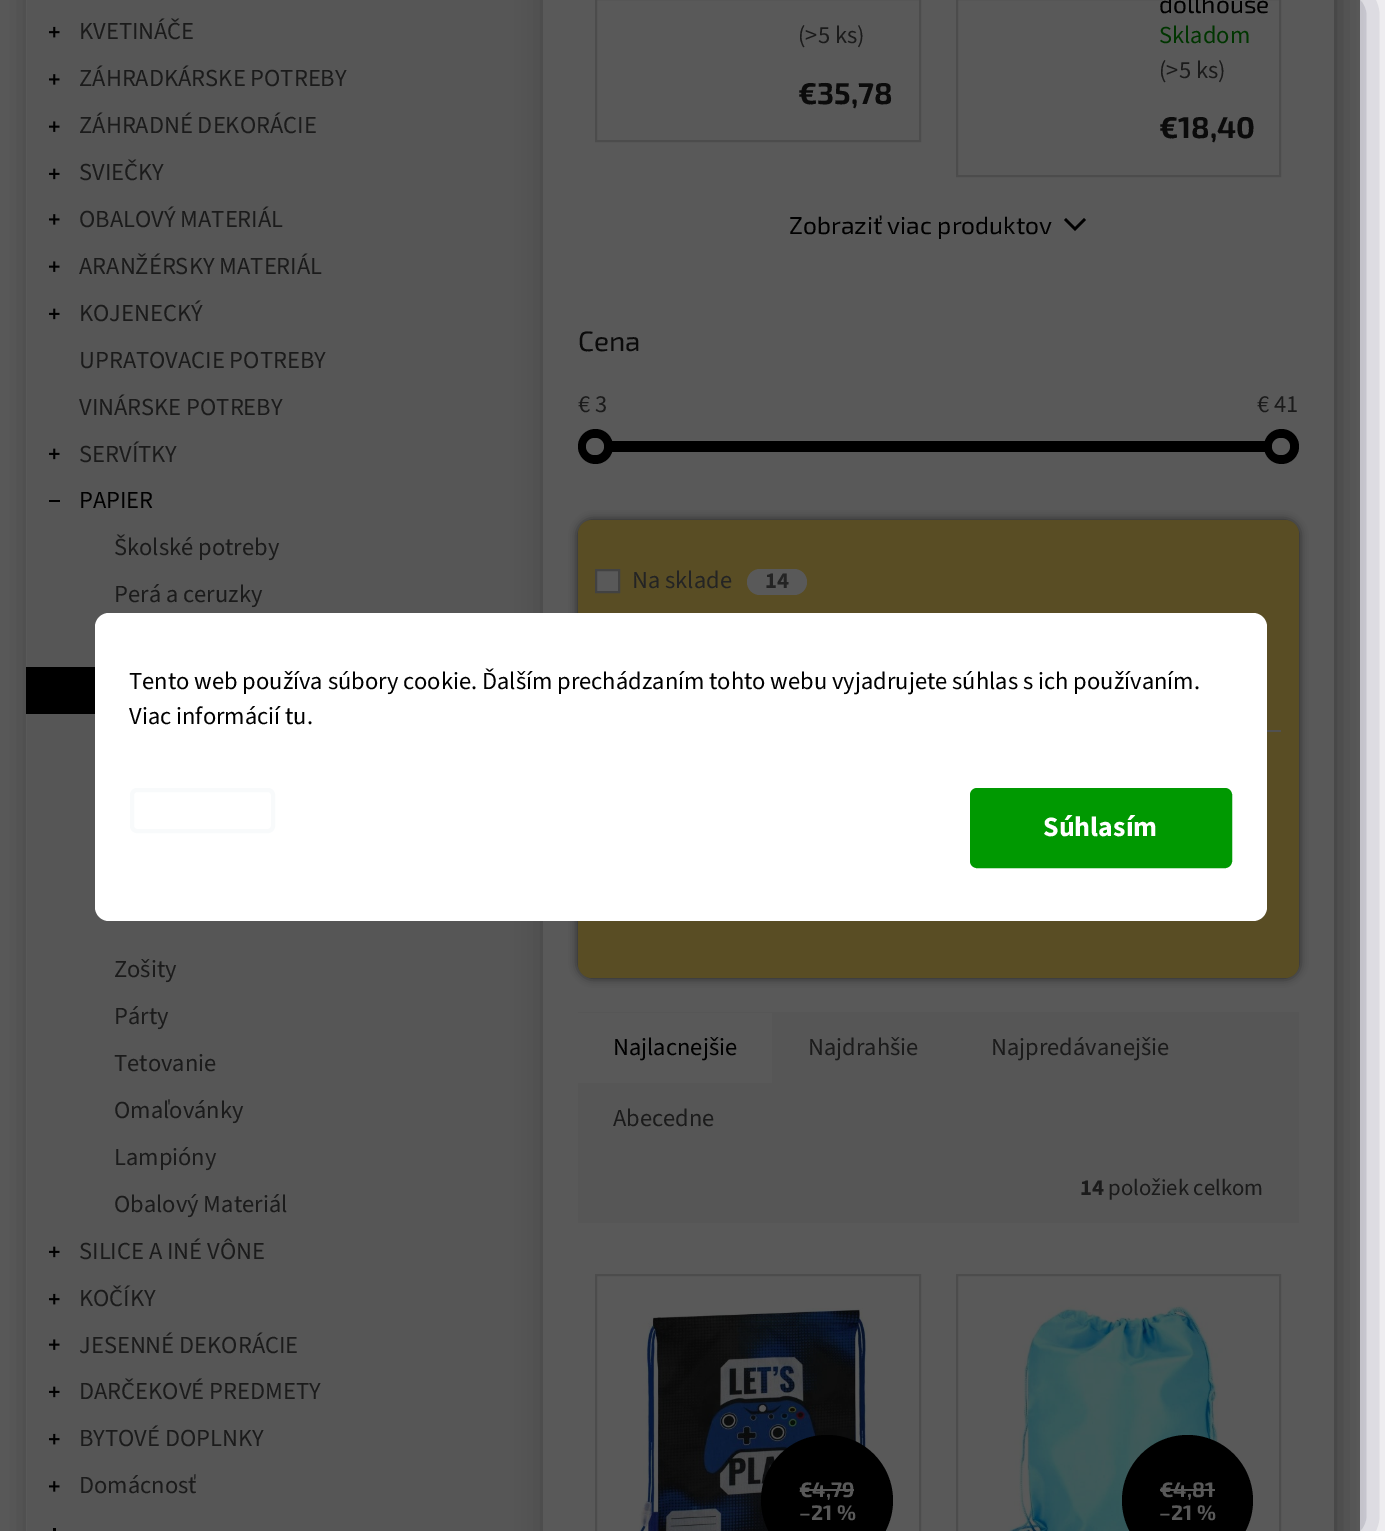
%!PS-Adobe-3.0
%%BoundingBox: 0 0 1385 1531
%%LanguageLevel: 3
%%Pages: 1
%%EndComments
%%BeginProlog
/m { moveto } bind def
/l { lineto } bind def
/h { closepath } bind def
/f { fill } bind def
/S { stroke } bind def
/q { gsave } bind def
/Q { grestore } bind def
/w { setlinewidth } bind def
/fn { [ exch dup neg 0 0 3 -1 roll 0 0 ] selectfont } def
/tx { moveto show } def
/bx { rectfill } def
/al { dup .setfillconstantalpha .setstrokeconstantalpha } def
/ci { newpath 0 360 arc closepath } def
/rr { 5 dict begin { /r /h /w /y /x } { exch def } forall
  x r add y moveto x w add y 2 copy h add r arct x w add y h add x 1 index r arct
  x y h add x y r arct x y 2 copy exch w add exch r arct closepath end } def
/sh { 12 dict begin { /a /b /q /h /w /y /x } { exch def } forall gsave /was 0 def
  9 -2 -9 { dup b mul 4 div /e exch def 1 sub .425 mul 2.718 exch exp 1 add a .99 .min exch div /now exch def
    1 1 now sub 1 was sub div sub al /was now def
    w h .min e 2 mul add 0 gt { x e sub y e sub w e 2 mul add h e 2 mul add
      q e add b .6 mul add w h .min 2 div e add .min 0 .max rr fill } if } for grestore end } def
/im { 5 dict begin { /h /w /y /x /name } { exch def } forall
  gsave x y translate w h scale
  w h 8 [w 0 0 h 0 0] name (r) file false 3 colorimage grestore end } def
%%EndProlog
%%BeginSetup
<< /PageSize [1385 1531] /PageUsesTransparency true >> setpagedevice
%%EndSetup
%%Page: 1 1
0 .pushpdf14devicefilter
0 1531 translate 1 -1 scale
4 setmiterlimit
1 setgray
0 0 1385 1531 bx
q
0 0 m 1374 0 l 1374 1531 l 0 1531 l h 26 -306 m 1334 -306 l 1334 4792 l 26 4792 l h eoclip newpath
0 setgray
26 -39 1308 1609 0 13 0.2 sh
Q
0.965 setgray
27 0 516 1531 bx
(image0.raw) 49 26 11 12 im
/SourceSans3-Regular 24.5 fn
0.302 setgray
(KVETINÁČE) 79 39 tx
(image1.raw) 49 74 11 11 im
(ZÁHRADKÁRSKE POTREBY) 79 86 tx
(image2.raw) 49 121 11 11 im
(ZÁHRADNÉ DEKORÁCIE) 79 133 tx
(image3.raw) 49 168 11 12 im
(SVIEČKY) 79 180 tx
(image1.raw) 49 214 11 11 im
(OBALOVÝ MATERIÁL) 79 227 tx
(image2.raw) 49 261 11 11 im
(ARANŽÉRSKY MATERIÁL) 79 274 tx
(image3.raw) 49 308 11 12 im
(KOJENECKÝ) 79 321 tx
(UPRATOVACIE POTREBY) 79 368 tx
(VINÁRSKE POTREBY) 79 415 tx
(image3.raw) 49 448 11 12 im
(SERVÍTKY) 79 462 tx
0 setgray
49 500 11 2 bx
(PAPIER) 79 508 tx
0.302 setgray
(Školské potreby) 114 555 tx
(Perá a ceruzky) 114 602 tx
0 setgray
26 667 69 47 bx
0.302 setgray
(Zošity) 114 977 tx
(Párty) 114 1024 tx
(Tetovanie) 114 1071 tx
(Omaľovánky) 114 1118 tx
(Lampióny) 114 1165 tx
(Obalový Materiál) 114 1212 tx
(image3.raw) 49 1246 11 12 im
(SILICE A INÉ VÔNE) 79 1259 tx
(image0.raw) 49 1293 11 12 im
(KOČÍKY) 79 1306 tx
(image2.raw) 49 1339 11 11 im
(JESENNÉ DEKORÁCIE) 79 1353 tx
(image3.raw) 49 1386 11 12 im
(DARČEKOVÉ PREDMETY) 79 1399 tx
(image0.raw) 49 1433 11 12 im
(BYTOVÉ DOPLNKY) 79 1446 tx
(image1.raw) 49 1481 11 11 im
(Domácnosť) 79 1493 tx
0 setgray
53 1528 3 3 bx
q
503 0 m 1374 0 l 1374 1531 l 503 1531 l h 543 -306 m 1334 -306 l 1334 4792 l 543 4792 l h eoclip newpath
543 -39 791 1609 0 13 0.2 sh
Q
0.855 setgray
2 w
596 -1 324 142 rectstroke
0.302 setgray
(\(>5 ks\)) 798 43 tx
/Exo2-Bold 30 fn
0.122 setgray
(€35,78) 798 104 tx
0.855 setgray
957 -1 323 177 rectstroke
/Exo2-Regular 24.5 fn
0 setgray
(dollhouse) 1159 13 tx
/SourceSans3-Regular 24.5 fn
0 0.6 0.004 setrgbcolor
(Skladom) 1159 43 tx
0.302 setgray
(\(>5 ks\)) 1159 78 tx
/Exo2-Bold 30 fn
0.122 setgray
(€18,40) 1159 138 tx
/Exo2-Regular 24.5 fn
0 setgray
(Zobraziť viac produktov) 789 234 tx
1064 220 m 1066 218 l 1075 227 l 1084 218 l 1086 220 l 1075 231 l h f
/Exo2-Regular 28 fn
0.122 setgray
(Cena) 578 351 tx
/SourceSans3-Regular 24.5 fn
0.302 setgray
(€ 3) 578 412 tx
(€ 41) 1257 412 tx
0.855 setgray
578 441 721 11 bx
0 setgray
612 441 653 11 bx
595.5 446.5 17.5 ci f
1 setgray
586 438 18 17 8.5 rr f
0 setgray
1281.5 446.5 17.5 ci f
1 setgray
1272 438 18 17 8.5 rr f
0.4 setgray
578 520 721 458 14 4.5 1 sh
1 0.871 0.408 setrgbcolor
578 520 721 458 14 rr f
1 setgray
596 570 m 619 570 l 619 592 l 596 592 l h q f Q
0.741 setgray
S
0.4 setgray
(Na sklade) 632 588 tx
1 setgray
747 569 60 26 13 rr f
/SourceSans3-Bold 22.75 fn
0.4 setgray
(14) 765 588 tx
0.914 setgray
1267 730 14 2 bx
0.965 setgray
578 1012 721 211 bx
1 setgray
578 1013 194 70 bx
/SourceSans3-Regular 24.5 fn
0 setgray
(Najlacnejšie) 613 1055 tx
0.302 setgray
(Najdrahšie) 808 1055 tx
(Najpredávanejšie) 991 1055 tx
(Abecedne) 613 1126 tx
/SourceSans3-Bold 22.75 fn
(14) 1080 1195 tx
/SourceSans3-Regular 22.75 fn
(položiek celkom) 1108 1195 tx
0.855 setgray
596 1275 324 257 rectstroke
(image4.raw) 639 1308 249 223 im
0 setgray
761 1435 132 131 65.5 rr f
/Exo2-Bold 21 fn
1 setgray
(€4,79) 799 1497 tx
800 1489 54 2 bx
(–21 %) 799 1520 tx
0.855 setgray
957 1275 323 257 rectstroke
(image5.raw) 1008 1305 238 226 im
0 setgray
1187.5 1500.5 65.5 ci f
1 setgray
(€4,81) 1160 1497 tx
1160 1489 55 2 bx
(–21 %) 1159 1520 tx
q
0 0 m 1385 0 l 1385 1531 l 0 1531 l h 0 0 m 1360 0 l 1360 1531 l 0 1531 l h eoclip newpath
0.106 0.098 0.224 setrgbcolor
0 0 1360 1531 0 26 0.5 sh
Q
0.65 al
0 setgray
0 0 1360 1531 bx
1 al
1 setgray
95 613 1172 308 14 rr f
/SourceSans3-Regular 24.5 fn
0 setgray
(Tento web používa súbory cookie. Ďalším prechádzaním tohto webu vyjadrujete súhlas s ich používaním.) 129 689 tx
(Viac informácií tu.) 129 724 tx
0.973 0.98 0.984 setrgbcolor
4 w
132 790 141 41 5 rr S
0 0.6 0.004 setrgbcolor
972 790 258 76 5 rr q f Q
S
/SourceSans3-Bold 28 fn
1 setgray
(Súhlasím) 1043 836 tx
.poppdf14devicefilter showpage
%%EOF
